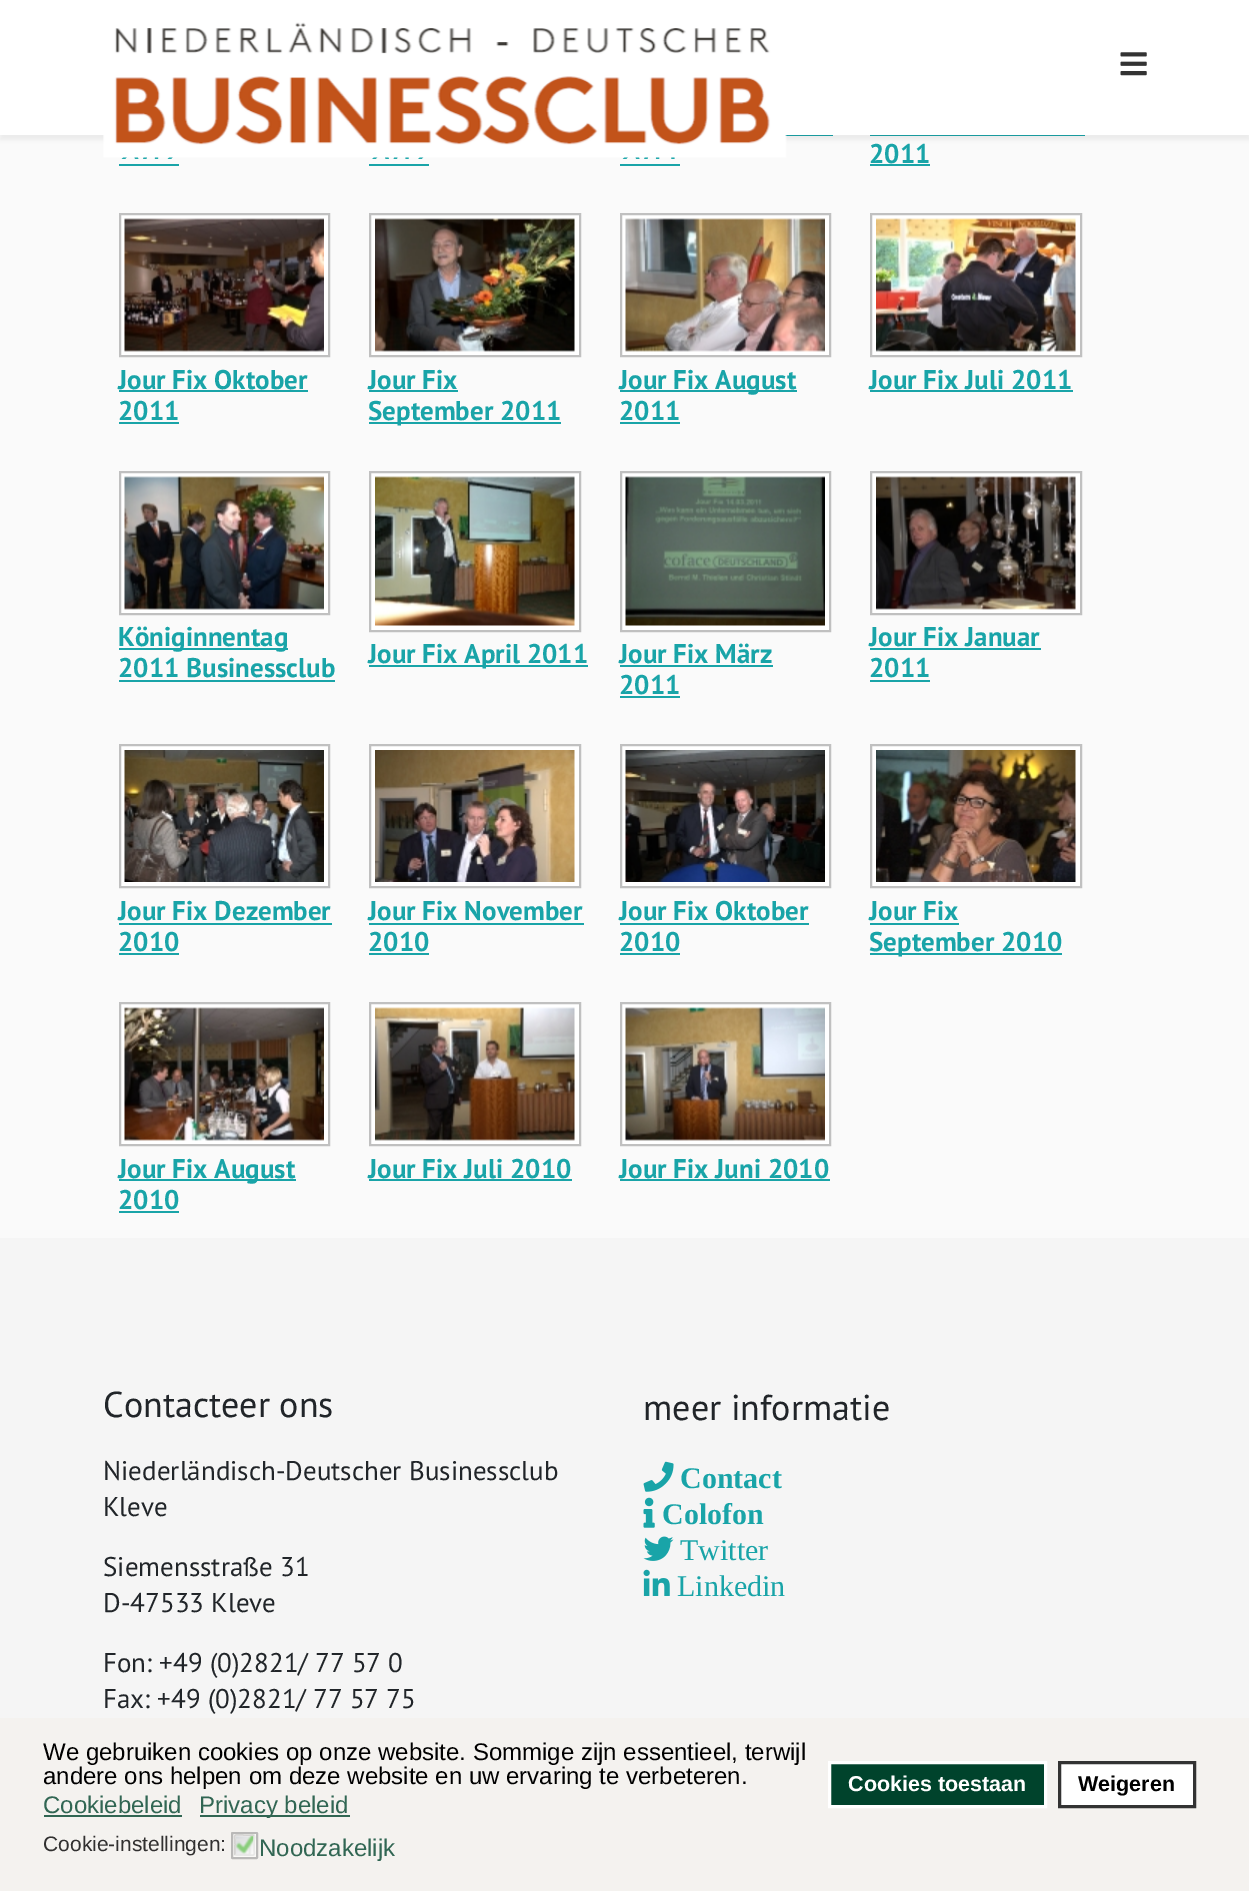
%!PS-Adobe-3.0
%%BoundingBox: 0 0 1249 1891
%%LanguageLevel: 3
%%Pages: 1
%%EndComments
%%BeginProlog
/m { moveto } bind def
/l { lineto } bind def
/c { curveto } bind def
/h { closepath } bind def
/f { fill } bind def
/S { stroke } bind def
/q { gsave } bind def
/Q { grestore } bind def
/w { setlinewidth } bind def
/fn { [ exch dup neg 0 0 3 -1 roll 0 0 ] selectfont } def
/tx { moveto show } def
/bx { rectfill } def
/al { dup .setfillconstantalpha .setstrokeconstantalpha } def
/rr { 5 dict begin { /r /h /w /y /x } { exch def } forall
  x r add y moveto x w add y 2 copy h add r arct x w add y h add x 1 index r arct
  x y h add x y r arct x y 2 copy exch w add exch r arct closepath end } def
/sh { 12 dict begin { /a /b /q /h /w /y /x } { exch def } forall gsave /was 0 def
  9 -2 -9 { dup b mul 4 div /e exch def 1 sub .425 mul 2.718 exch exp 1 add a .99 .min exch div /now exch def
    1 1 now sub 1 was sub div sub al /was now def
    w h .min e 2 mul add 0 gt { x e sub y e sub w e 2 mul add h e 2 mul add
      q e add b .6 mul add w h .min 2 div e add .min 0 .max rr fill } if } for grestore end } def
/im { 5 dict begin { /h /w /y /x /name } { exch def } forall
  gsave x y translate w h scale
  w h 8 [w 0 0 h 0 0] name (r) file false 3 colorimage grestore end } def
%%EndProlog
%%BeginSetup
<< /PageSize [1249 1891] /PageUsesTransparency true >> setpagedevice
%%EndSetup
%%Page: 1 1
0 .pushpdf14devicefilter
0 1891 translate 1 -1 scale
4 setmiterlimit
0.98 setgray
0 0 1249 1891 bx
0.098 0.643 0.659 setrgbcolor
785 135 48 1 bx
870 135 215 1 bx
0 setgray
0 5 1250 135 0 2 0.05 sh
1 setgray
0 0 1249 135 bx
(image0.raw) 103 22 684 137 im
(image1.raw) 1120 52 27 24 im
0.098 0.643 0.659 setrgbcolor
620 164 60 2 bx
/PTSans-Bold 27 fn
(2011) 869 163 tx
870 164 60 2 bx
119 164 60 2 bx
369 164 60 2 bx
1 setgray
120 214 m 329 214 l 329 356 l 120 356 l h q f Q
0.753 setgray
2 w
S
(image2.raw) 124 218 200 134 im
0.098 0.643 0.659 setrgbcolor
(Jour Fix Oktober) 118 389 tx
119 390 189 2 bx
(2011) 118 420 tx
119 422 60 2 bx
1 setgray
370 214 m 580 214 l 580 356 l 370 356 l h q f Q
0.753 setgray
S
(image3.raw) 375 218 200 134 im
0.098 0.643 0.659 setrgbcolor
(Jour Fix) 368 389 tx
369 390 89 2 bx
369 422 192 2 bx
(September 2011) 368 420 tx
1 setgray
621 214 m 830 214 l 830 356 l 621 356 l h q f Q
0.753 setgray
S
(image4.raw) 625 218 200 134 im
0.098 0.643 0.659 setrgbcolor
620 390 177 2 bx
(Jour Fix August) 619 389 tx
(2011) 619 420 tx
620 422 60 2 bx
1 setgray
871 214 m 1081 214 l 1081 356 l 871 356 l h q f Q
0.753 setgray
S
(image5.raw) 876 218 200 134 im
0.098 0.643 0.659 setrgbcolor
(Jour Fix Juli 2011) 869 389 tx
870 390 203 2 bx
1 setgray
120 472 m 329 472 l 329 614 l 120 614 l h q f Q
0.753 setgray
S
(image6.raw) 124 476 200 134 im
0.098 0.643 0.659 setrgbcolor
119 648 169 2 bx
(Königinnentag) 118 646 tx
(2011 Businessclub) 118 677 tx
119 680 216 2 bx
1 setgray
370 472 m 580 472 l 580 631 l 370 631 l h q f Q
0.753 setgray
S
(image7.raw) 375 476 200 150 im
0.098 0.643 0.659 setrgbcolor
369 665 219 2 bx
(Jour Fix April 2011) 368 663 tx
1 setgray
621 472 m 830 472 l 830 631 l 621 631 l h q f Q
0.753 setgray
S
(image8.raw) 625 476 200 150 im
0.098 0.643 0.659 setrgbcolor
(Jour Fix März) 619 663 tx
620 665 153 2 bx
(2011) 619 694 tx
620 696 60 2 bx
1 setgray
871 472 m 1081 472 l 1081 614 l 871 614 l h q f Q
0.753 setgray
S
(image9.raw) 876 476 200 134 im
0.098 0.643 0.659 setrgbcolor
(Jour Fix Januar) 869 646 tx
870 648 171 2 bx
(2011) 869 677 tx
870 680 60 2 bx
1 setgray
120 745 m 329 745 l 329 887 l 120 887 l h q f Q
0.753 setgray
S
(image10.raw) 124 750 200 132 im
0.098 0.643 0.659 setrgbcolor
(Jour Fix Dezember) 118 920 tx
119 923 213 2 bx
(2010) 118 951 tx
119 953 60 2 bx
1 setgray
370 745 m 580 745 l 580 887 l 370 887 l h q f Q
0.753 setgray
S
(image11.raw) 375 750 200 132 im
0.098 0.643 0.659 setrgbcolor
(Jour Fix November) 368 920 tx
369 923 215 2 bx
(2010) 368 951 tx
369 953 60 2 bx
1 setgray
621 745 m 830 745 l 830 887 l 621 887 l h q f Q
0.753 setgray
S
(image12.raw) 625 750 200 132 im
0.098 0.643 0.659 setrgbcolor
(Jour Fix Oktober) 619 920 tx
620 923 189 2 bx
(2010) 619 951 tx
620 953 60 2 bx
1 setgray
871 745 m 1081 745 l 1081 887 l 871 887 l h q f Q
0.753 setgray
S
(image13.raw) 876 750 200 132 im
0.098 0.643 0.659 setrgbcolor
(Jour Fix) 869 920 tx
870 923 89 2 bx
870 953 192 2 bx
(September 2010) 869 951 tx
1 setgray
120 1003 m 329 1003 l 329 1145 l 120 1145 l h q f Q
0.753 setgray
S
(image14.raw) 124 1007 200 134 im
0.098 0.643 0.659 setrgbcolor
119 1179 177 2 bx
(Jour Fix August) 118 1178 tx
(2010) 118 1209 tx
119 1211 60 2 bx
1 setgray
370 1003 m 580 1003 l 580 1145 l 370 1145 l h q f Q
0.753 setgray
S
(image15.raw) 375 1007 200 134 im
0.098 0.643 0.659 setrgbcolor
(Jour Fix Juli 2010) 368 1178 tx
369 1179 203 2 bx
1 setgray
621 1003 m 830 1003 l 830 1145 l 621 1145 l h q f Q
0.753 setgray
S
(image16.raw) 625 1007 200 134 im
0.098 0.643 0.659 setrgbcolor
(Jour Fix Juni 2010) 619 1178 tx
620 1179 210 2 bx
0.961 setgray
0 1238 1249 480 bx
/PTSans-Regular 36 fn
0.129 0.145 0.161 setrgbcolor
(Contacteer ons) 103 1417 tx
/PTSans-Regular 27 fn
(Niederländisch-Deutscher Businessclub) 103 1480 tx
(Kleve) 103 1516 tx
(Siemensstraße 31) 103 1576 tx
(D-47533 Kleve) 103 1612 tx
(Fon: +49 \(0\)2821/ 77 57 0) 103 1672 tx
(Fax: +49 \(0\)2821/ 77 57 75) 103 1708 tx
/PTSans-Regular 36 fn
(meer informatie) 643 1420 tx
(image17.raw) 643 1461 31 31 im
/LiberationSerif-Bold 30 fn
0.098 0.643 0.659 setrgbcolor
(Contact) 680 1488 tx
(image18.raw) 643 1497 12 31 im
(Colofon) 662 1524 tx
(image19.raw) 643 1536 31 25 im
/LiberationSerif-Regular 30 fn
(Twitter) 680 1560 tx
(image20.raw) 643 1569 27 27 im
(Linkedin) 677 1596 tx
0.957 0.949 0.937 setrgbcolor
0 1718 1249 173 bx
/LiberationSans-Regular 24 fn
0 setgray
(We gebruiken cookies op onze website. Sommige zijn essentieel, terwijl) 43 1760 tx
(andere ons helpen om deze website en uw ervaring te verbeteren.) 43 1784 tx
0.192 0.4 0.325 setrgbcolor
(Cookiebeleid) 43 1813 tx
44 1815 138 2 bx
200 1815 150 2 bx
(Privacy beleid) 199 1813 tx
0 0.263 0.173 setrgbcolor
829.5 1762.5 m 1045.5 1762.5 l 1045.5 1806.5 l 829.5 1806.5 l h q f Q
1 setgray
3 w
S
/LiberationSans-Bold 21.5 fn
(Cookies toestaan) 848 1791 tx
1059.5 1762.5 m 1194.5 1762.5 l 1194.5 1806.5 l 1059.5 1806.5 l h q f Q
0.2 setgray
S
0 setgray
(Weigeren) 1078 1791 tx
/LiberationSans-Regular 21 fn
0.192 0.188 0.188 setrgbcolor
(Cookie-instellingen:) 43 1851 tx
0.98 0.976 0.969 setrgbcolor
232 1833 25 25 0.5 rr q f Q
0.729 0.725 0.722 setrgbcolor
2 w
S
(image21.raw) 234 1834 22 22 im
0.91 0.91 0.906 setrgbcolor
1.5 w
254 1835.5 m 254.5 1836 254 1843.5 254 1845 c 254 1857.5 257 1855 244.5 1855 c 243 1855 235.5 1855 235 1854.5 c S
0.831 0.827 0.82 setrgbcolor
235 1854.5 m 234.5 1854 235 1846.5 235 1845 c 235 1832.5 232 1835 244.5 1835 c 246 1835 253.5 1835 254 1835.5 c S
/LiberationSans-Regular 24 fn
0.192 0.4 0.325 setrgbcolor
(Noodzakelijk) 259 1856 tx
.poppdf14devicefilter showpage
%%EOF
